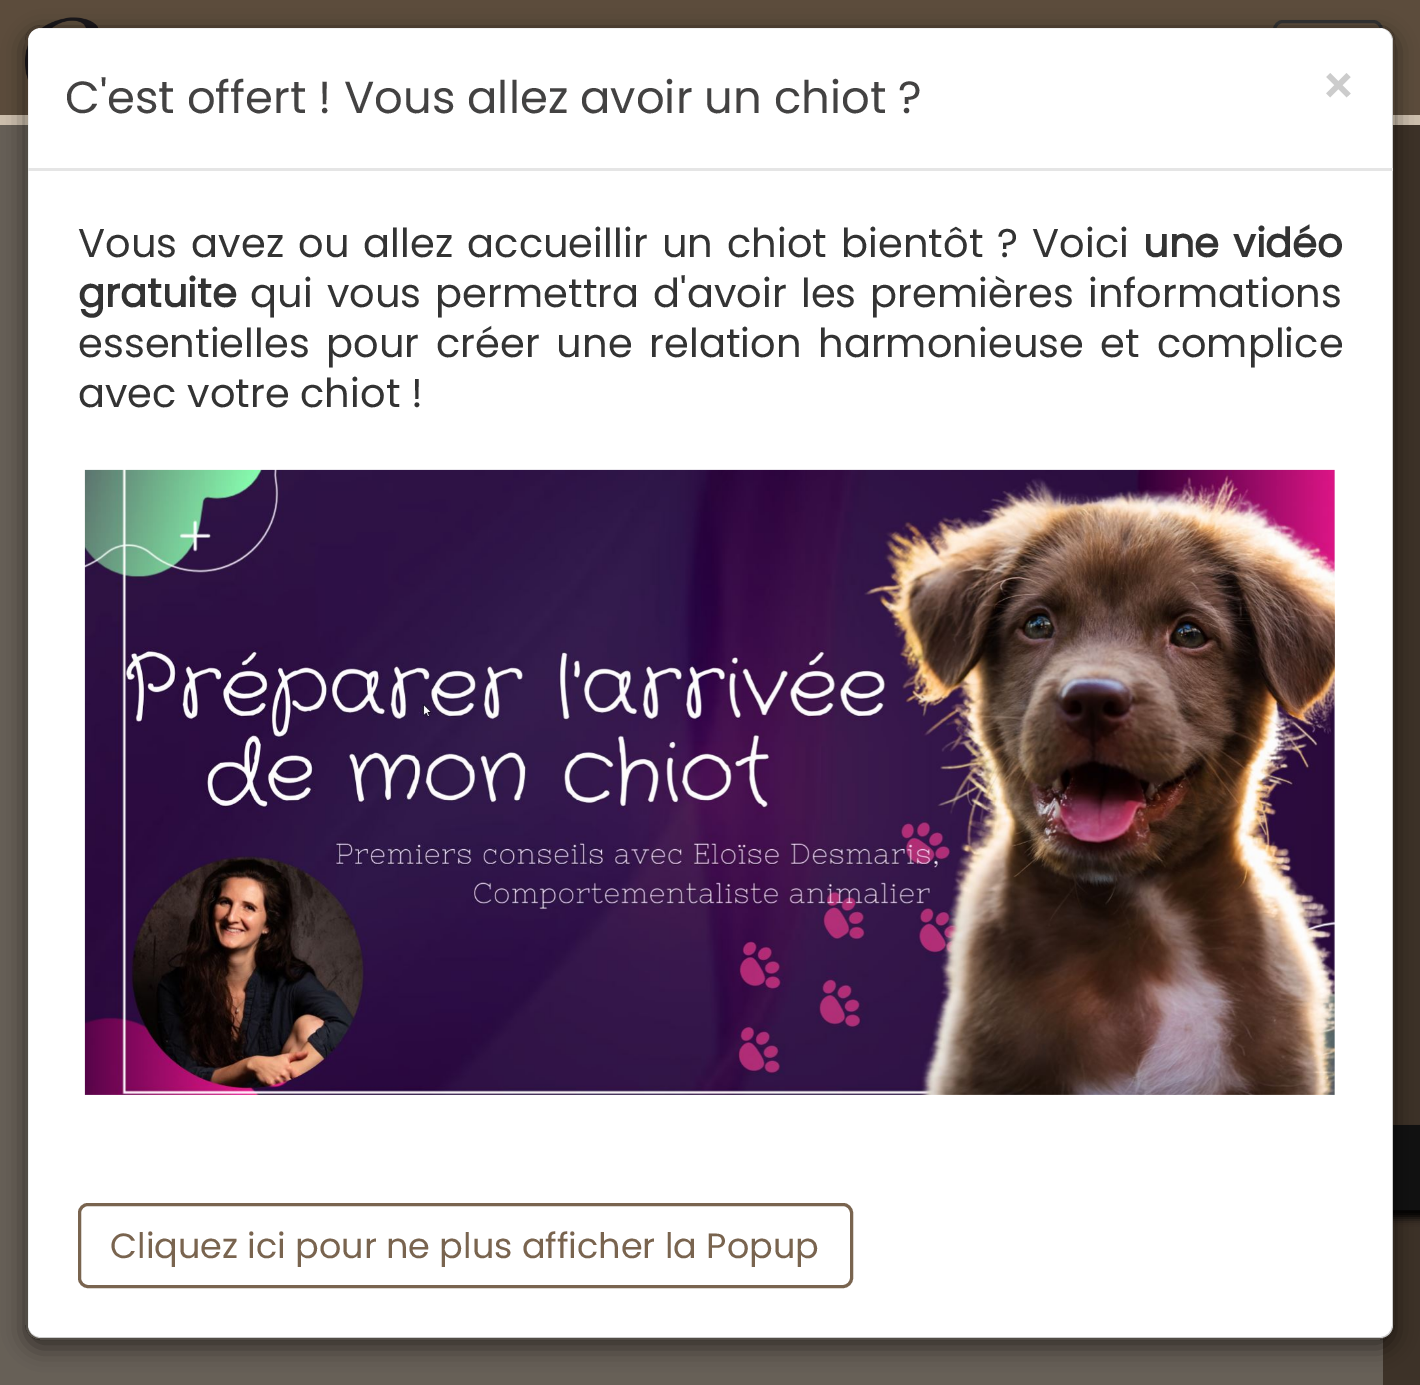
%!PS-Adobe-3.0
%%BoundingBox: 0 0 1420 1385
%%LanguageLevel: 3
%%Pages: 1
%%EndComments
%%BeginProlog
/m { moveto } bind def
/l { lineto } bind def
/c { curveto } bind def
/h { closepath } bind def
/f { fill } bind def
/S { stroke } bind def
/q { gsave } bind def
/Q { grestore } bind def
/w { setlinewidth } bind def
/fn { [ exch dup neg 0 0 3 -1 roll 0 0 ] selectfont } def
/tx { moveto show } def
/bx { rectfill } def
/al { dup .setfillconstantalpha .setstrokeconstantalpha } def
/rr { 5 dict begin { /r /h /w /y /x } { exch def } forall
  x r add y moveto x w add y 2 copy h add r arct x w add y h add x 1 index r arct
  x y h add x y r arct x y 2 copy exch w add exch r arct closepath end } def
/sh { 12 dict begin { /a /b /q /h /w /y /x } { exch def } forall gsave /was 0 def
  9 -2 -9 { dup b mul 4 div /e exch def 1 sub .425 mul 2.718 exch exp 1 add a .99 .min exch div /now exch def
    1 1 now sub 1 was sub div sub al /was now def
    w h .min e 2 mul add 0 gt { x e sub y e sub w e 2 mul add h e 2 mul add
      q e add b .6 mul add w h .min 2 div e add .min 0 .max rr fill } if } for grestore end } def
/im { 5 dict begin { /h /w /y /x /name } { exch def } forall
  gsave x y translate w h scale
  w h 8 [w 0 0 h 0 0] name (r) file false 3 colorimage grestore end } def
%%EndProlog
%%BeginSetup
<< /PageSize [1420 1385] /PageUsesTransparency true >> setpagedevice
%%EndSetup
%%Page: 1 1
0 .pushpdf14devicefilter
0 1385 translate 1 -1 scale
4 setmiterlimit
0.239 0.196 0.157 setrgbcolor
0 0 1420 1385 bx
0.361 0.298 0.235 setrgbcolor
0 0 1420 115 bx
0.808 0.753 0.682 setrgbcolor
0 115 1420 10 bx
0.2 setgray
3 w
1274.5 21.5 107 82 8.5 rr S
(image0.raw) 25 17 74 63 im
0.404 0.376 0.341 setrgbcolor
0 125 1383 1260 bx
0 setgray
1320 1133 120 85 10 4 1 sh
0.067 setgray
1393 1128 27 79 bx
1314.5 1126.5 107 82 rectstroke
q
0 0 m 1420 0 l 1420 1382 l 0 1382 l h 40 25 m 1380 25 l 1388.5 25 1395 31.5 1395 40 c 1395 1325 l 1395 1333.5 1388.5 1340 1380 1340 c 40 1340 l 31.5 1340 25 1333.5 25 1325 c 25 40 l 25 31.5 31.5 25 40 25 c h eoclip newpath
0 setgray
25 33 1370 1315 15 11 0.5 sh
Q
1 setgray
28 28 1365 1310 13 rr f
0.2 al
0 setgray
26.5 26.5 1367 1312 13.5 rr S
1 al
0.898 setgray
28 168 1365 3 bx
/Poppins-Regular 45 fn
0.263 0.259 0.259 setrgbcolor
(C'est offert ! Vous allez avoir un chiot ?) 65 113 tx
/Poppins-Bold 52 fn
0.8 setgray
(×) 1321 105 tx
/Poppins-Regular 40 fn
0.2 setgray
78 257 m 3.5 0 32 (Vous avez ou allez accueillir un chiot bientôt ? Voici) widthshow
/Poppins-Bold 40 fn
1143 257 m 3.5 0 32 (une vidéo) widthshow
(gratuite) 78 307 tx
/Poppins-Regular 40 fn
250 307 m 3.5 0 32 (qui vous permettra d'avoir les premières informations) widthshow
78 357 m 6 0 32 (essentielles pour créer une relation harmonieuse et complice) widthshow
(avec votre chiot !) 78 407 tx
(image1.raw) 84 469 1251 626 im
0.475 0.392 0.31 setrgbcolor
79.5 1204.5 772 82 8.5 rr S
/Poppins-Regular 35 fn
(Cliquez ici pour ne plus afficher la Popup) 110 1258 tx
.poppdf14devicefilter showpage
%%EOF
